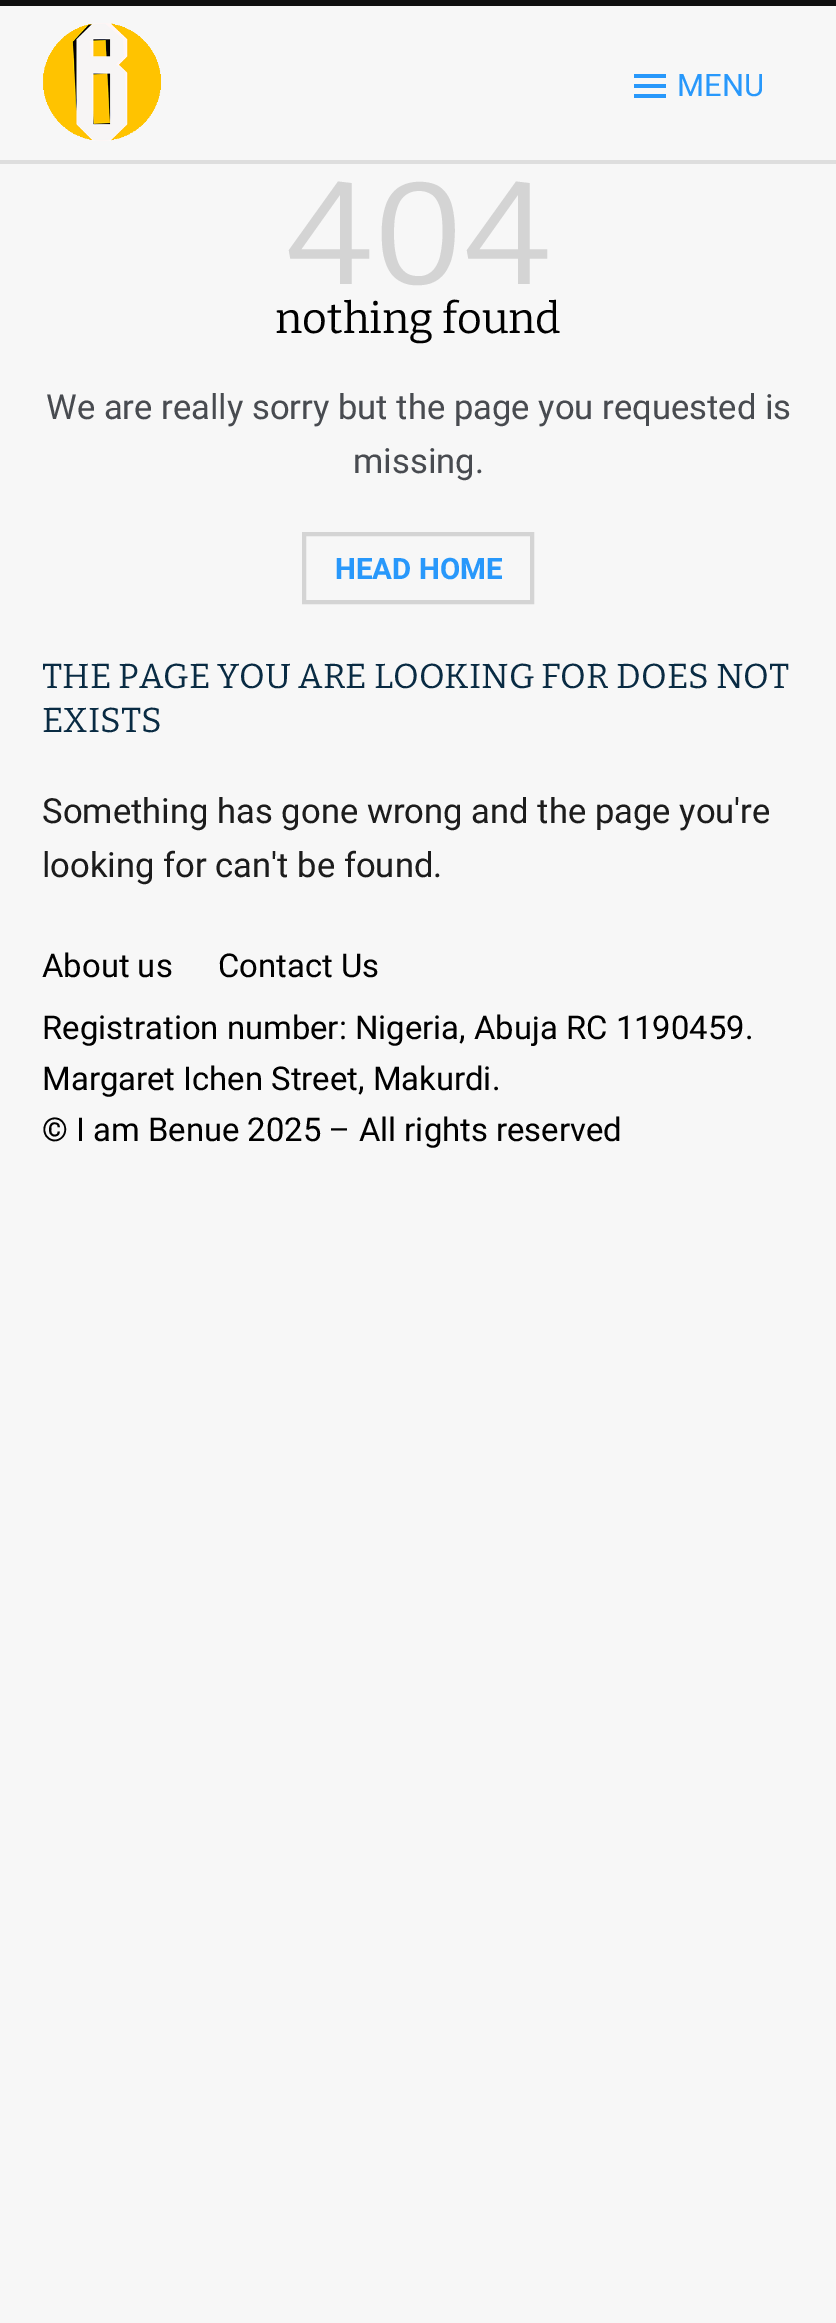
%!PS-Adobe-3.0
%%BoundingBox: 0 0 836 2323
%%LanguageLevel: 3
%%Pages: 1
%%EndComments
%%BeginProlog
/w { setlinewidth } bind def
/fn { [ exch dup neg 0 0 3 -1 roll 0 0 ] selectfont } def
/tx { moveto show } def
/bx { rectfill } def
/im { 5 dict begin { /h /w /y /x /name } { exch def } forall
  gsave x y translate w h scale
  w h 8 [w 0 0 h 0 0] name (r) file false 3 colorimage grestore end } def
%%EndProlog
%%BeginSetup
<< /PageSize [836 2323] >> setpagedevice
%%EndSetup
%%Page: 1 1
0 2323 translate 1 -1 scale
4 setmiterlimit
0.969 setgray
0 0 836 2323 bx
0.059 setgray
0 0 836 6 bx
0.871 setgray
0 160 836 4 bx
(image0.raw) 43 23 118 118 im
0.157 0.596 0.984 setrgbcolor
634 84 32 4 bx
634 74 32 4 bx
634 94 32 4 bx
/Heebo-Regular 31 fn
(MENU) 677 96 tx
/Bitter-Thin 145 fn
0.831 setgray
(404) 287 284 tx
/Bitter-Thin 43 fn
0 setgray
(nothing found) 275 333 tx
/Heebo-Regular 34.6 fn
0.282 0.294 0.314 setrgbcolor
(We are really sorry but the page you requested is) 46 419 tx
(missing.) 353 473 tx
0.831 setgray
4 w
304 534 228 68 rectstroke
/Heebo-Bold 29.5 fn
0.157 0.596 0.984 setrgbcolor
(HEAD HOME) 335 579 tx
/Bitter-Thin 34.6 fn
0.035 0.169 0.263 setrgbcolor
(THE PAGE YOU ARE LOOKING FOR DOES NOT) 42 688 tx
(EXISTS) 42 732 tx
/Heebo-Regular 34.6 fn
0.11 setgray
(Something has gone wrong and the page you're) 42 823 tx
(looking for can't be found.) 42 877 tx
/Heebo-Regular 32.8 fn
0 setgray
(About us) 42 977 tx
(Contact Us) 218 977 tx
(Registration number: Nigeria, Abuja RC 1190459.) 42 1039 tx
(Margaret Ichen Street, Makurdi.) 42 1090 tx
(© I am Benue 2025 – All rights reserved) 42 1141 tx
showpage
%%EOF
